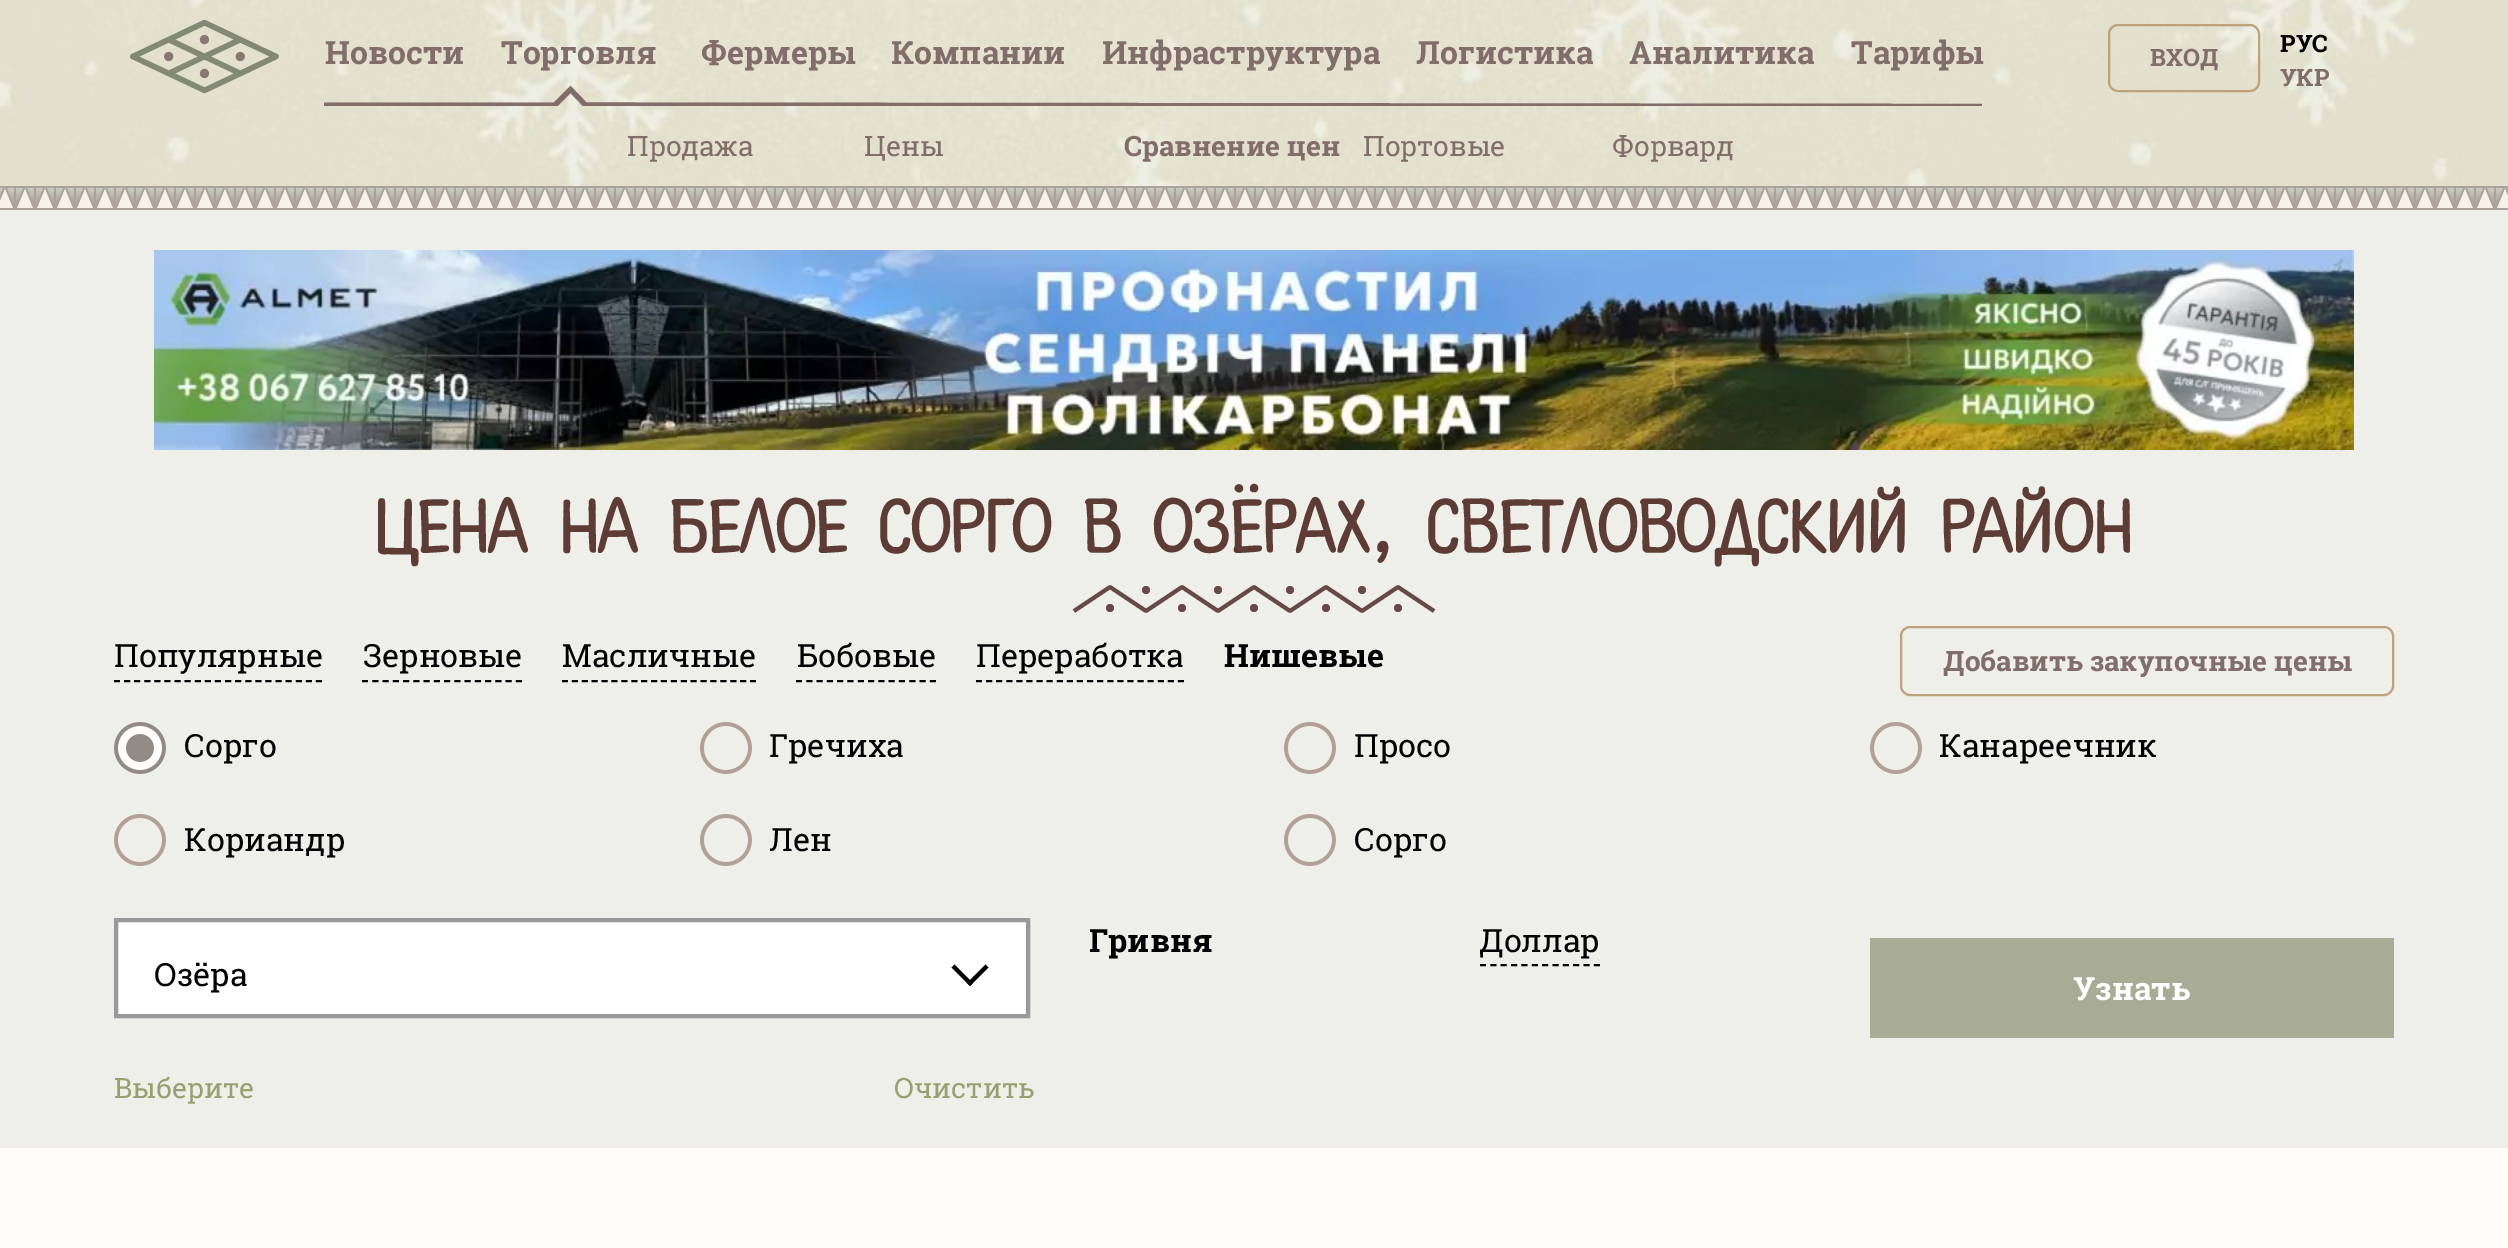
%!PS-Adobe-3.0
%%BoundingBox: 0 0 2508 1248
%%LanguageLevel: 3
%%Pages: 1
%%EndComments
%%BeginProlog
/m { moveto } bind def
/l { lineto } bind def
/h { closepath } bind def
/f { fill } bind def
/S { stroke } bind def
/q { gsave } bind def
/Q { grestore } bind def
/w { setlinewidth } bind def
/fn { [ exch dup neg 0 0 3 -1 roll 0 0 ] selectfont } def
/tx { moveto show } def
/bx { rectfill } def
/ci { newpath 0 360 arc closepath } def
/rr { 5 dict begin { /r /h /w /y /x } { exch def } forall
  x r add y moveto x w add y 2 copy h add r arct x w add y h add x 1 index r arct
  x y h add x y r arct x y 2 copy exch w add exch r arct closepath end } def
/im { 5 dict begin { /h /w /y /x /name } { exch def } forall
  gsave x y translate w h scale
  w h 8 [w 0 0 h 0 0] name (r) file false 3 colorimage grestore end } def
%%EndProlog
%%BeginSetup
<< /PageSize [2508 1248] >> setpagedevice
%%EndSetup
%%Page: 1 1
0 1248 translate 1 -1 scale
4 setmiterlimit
1 0.988 0.976 setrgbcolor
0 0 2508 1248 bx
(image0.raw) 0 0 2508 186 im
(image1.raw) 130 19 149 75 im
/RobotoSlab-Bold 32 fn
0.506 0.431 0.42 setrgbcolor
(Новости) 325 64 tx
(Торговля) 501 64 tx
(Фермеры) 701 64 tx
(Компании) 891 64 tx
(Инфрaструктура) 1102 64 tx
(Логистика) 1416 64 tx
(Аналитика) 1629 64 tx
(Тарифы) 1851 64 tx
0.745 0.635 0.486 setrgbcolor
2 w
2109 25 150 66 9 rr S
/RobotoSlab-Bold 24 fn
0.506 0.431 0.42 setrgbcolor
(ВХОД) 2150 66 tx
0 setgray
(РУС) 2280 52 tx
0.506 0.431 0.42 setrgbcolor
(УКР) 2280 86 tx
q
324 84 1658 22 rectclip
5.1 w
-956 105 m 555 105 l 570.5 89.5 l 585.5 105 l 2093.5 106.5 l S
Q
/RobotoSlab-Regular 28 fn
(Продажа зерна) 627 156 tx
(Цены трейдеров) 864 156 tx
/RobotoSlab-Bold 28 fn
(Сравнение цен) 1124 156 tx
/RobotoSlab-Regular 28 fn
(Портовые цены) 1363 156 tx
(Форвард) 1612 156 tx
(image2.raw) 0 186 2508 24 im
0.933 0.937 0.91 setrgbcolor
0 210 2508 938 bx
(image3.raw) 154 250 2200 200 im
0.4 0.29 0.282 setrgbcolor
4 w
2 setlinejoin
1074 611 m 1110 587 l 1146 611 l 1182 587 l 1218 611 l 1254 587 l 1290 611 l 1326 587 l 1362 611 l 1398 587 l 1434 611 l S
1110 608 4 ci f
1146 590 4 ci f
1182 608 4 ci f
1218 590 4 ci f
1254 608 4 ci f
1290 590 4 ci f
1326 608 4 ci f
1362 590 4 ci f
1398 608 4 ci f
/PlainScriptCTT-Regular 80 fn
0.361 0.235 0.208 setrgbcolor
(Цена на белое сорго в Озёрах, Светловодский район) 375 553 tx
0 setgray
2 w
0 setlinejoin
[6 4.1] 0 setdash
114 681 m 322 681 l S
/RobotoSlab-Regular 32 fn
(Популярные) 114 667 tx
[6 4.26] 0 setdash
362 681 m 522 681 l S
(Зерновые) 363 667 tx
[6 3.9] 0 setdash
562 681 m 756 681 l S
(Масличные) 562 667 tx
[6 4.3] 0 setdash
796 681 m 936 681 l S
(Бобовые) 797 667 tx
[6 4.1] 0 setdash
976 681 m 1184 681 l S
(Переработка) 976 667 tx
/RobotoSlab-Bold 32 fn
(Нишевые) 1224 667 tx
0.745 0.635 0.486 setrgbcolor
[] 0 setdash
1901 627 492 68 9 rr S
/RobotoSlab-Bold 28 fn
0.506 0.431 0.42 setrgbcolor
(Добавить закупочные цены) 1943 671 tx
(image4.raw) 114 722 52 52 im
/RobotoSlab-Regular 32 fn
0 setgray
(Сорго белое) 184 757 tx
(image5.raw) 700 722 52 52 im
(Гречиха) 769 757 tx
(image5.raw) 1284 722 52 52 im
(Просо красное) 1354 757 tx
(image5.raw) 1870 722 52 52 im
(Канареечник) 1939 757 tx
(image5.raw) 114 814 52 52 im
(Кориандр) 184 851 tx
(image5.raw) 700 814 52 52 im
(Лен) 769 851 tx
(image5.raw) 1284 814 52 52 im
(Сорго красное) 1354 851 tx
/RobotoSlab-Bold 32 fn
(Гривня) 1089 952 tx
[6 4.36] 0 setdash
1480 965 m 1600 965 l S
/RobotoSlab-Regular 32 fn
(Доллар) 1479 952 tx
1 setgray
116 920 m 1028 920 l 1028 1016 l 116 1016 l h q f Q
0.6 setgray
4 w
[] 0 setdash
S
0 setgray
(Озёра) 154 986 tx
988.5 967.5 m 970 986 l 967 983 l 985.5 964.5 l h f
973 983 m 970 986 l 951.5 967.5 l 954.5 964.5 l h f
0.659 0.675 0.58 setrgbcolor
1870 938 524 100 bx
/RobotoSlab-Bold 32 fn
1 setgray
(Узнать) 2073 1000 tx
/RobotoSlab-Regular 28 fn
0.6 0.627 0.439 setrgbcolor
(Выберите город) 114 1098 tx
(Очистить) 894 1098 tx
showpage
%%EOF
